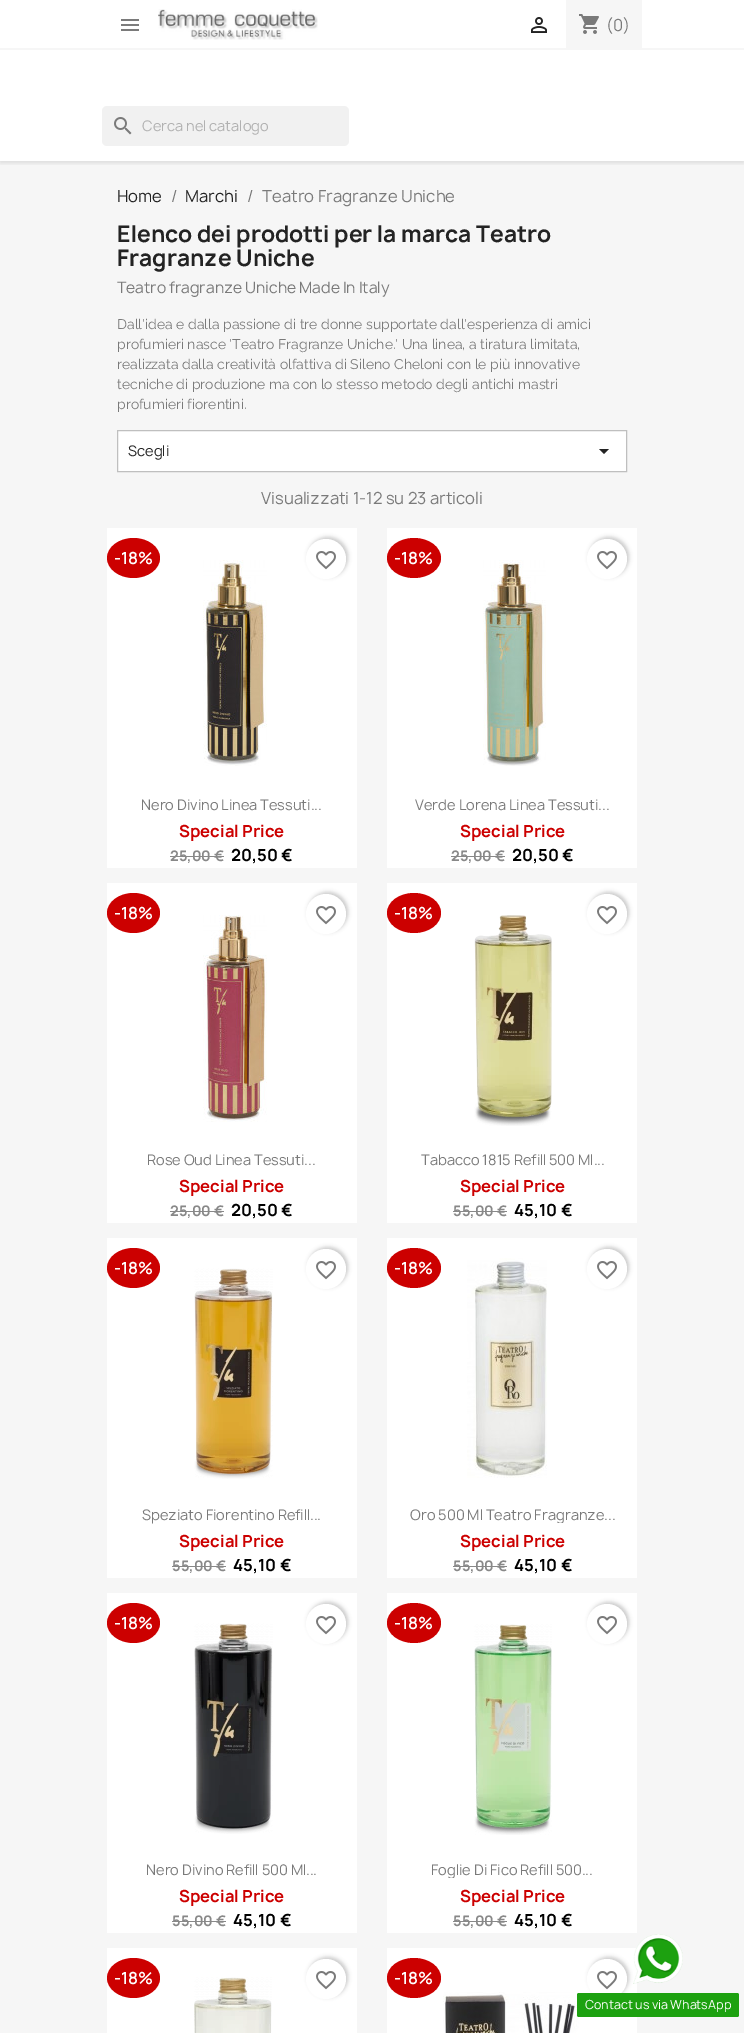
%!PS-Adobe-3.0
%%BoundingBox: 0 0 744 2033
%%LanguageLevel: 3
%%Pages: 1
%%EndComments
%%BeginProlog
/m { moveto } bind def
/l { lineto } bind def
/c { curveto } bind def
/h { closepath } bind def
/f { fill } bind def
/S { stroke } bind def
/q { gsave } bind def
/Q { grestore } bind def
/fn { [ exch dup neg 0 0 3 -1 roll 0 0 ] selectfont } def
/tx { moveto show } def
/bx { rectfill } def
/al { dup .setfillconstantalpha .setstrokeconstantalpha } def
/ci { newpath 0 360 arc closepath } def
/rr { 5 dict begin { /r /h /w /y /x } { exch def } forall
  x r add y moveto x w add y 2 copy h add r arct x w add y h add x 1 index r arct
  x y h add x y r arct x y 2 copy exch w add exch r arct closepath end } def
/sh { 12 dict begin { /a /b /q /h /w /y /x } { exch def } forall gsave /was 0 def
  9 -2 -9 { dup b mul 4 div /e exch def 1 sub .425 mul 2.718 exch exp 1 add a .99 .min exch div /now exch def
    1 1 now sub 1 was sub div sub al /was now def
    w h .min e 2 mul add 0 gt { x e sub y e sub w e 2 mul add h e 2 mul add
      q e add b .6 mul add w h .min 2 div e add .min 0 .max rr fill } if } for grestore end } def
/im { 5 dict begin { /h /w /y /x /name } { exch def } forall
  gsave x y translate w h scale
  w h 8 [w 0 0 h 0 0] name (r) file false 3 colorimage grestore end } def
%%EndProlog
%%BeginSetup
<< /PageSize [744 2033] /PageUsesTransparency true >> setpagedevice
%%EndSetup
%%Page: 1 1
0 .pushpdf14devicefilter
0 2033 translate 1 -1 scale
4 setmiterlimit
1 setgray
0 0 744 2033 bx
0.965 setgray
0 161 744 1872 bx
q
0 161 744 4 rectclip
0 setgray
0 2 744 161 0 2.5 0.11 sh
Q
0 48 744 2 bx
(image0.raw) 121 19 18 12 im
(image1.raw) 158 9 160 31 im
(image2.raw) 531 17 16 16 im
566 0 76 48 bx
(image3.raw) 579 14 20 20 im
/Manrope-Regular 16 fn
0.478 setgray
(\(0\)) 606 31 tx
0.945 setgray
102 106 247 40 5 rr f
(image4.raw) 114 117 18 18 im
/Manrope-Regular 14 fn
0.694 setgray
(Cerca nel catalogo) 142 131 tx
/Manrope-Regular 16 fn
0.137 setgray
(Home) 117 202 tx
0.478 setgray
(/) 171 202 tx
0.137 setgray
(Marchi) 185 202 tx
0.478 setgray
(/) 247 202 tx
(Teatro Fragranze Uniche) 262 202 tx
/Manrope-Bold 22 fn
0.137 setgray
(Elenco dei prodotti per la marca Teatro) 117 242 tx
(Fragranze Uniche) 117 266 tx
/Manrope-Regular 15 fn
0.478 setgray
(Teatro fragranze Uniche Made In Italy) 117 293 tx
/Raleway-Regular 14 fn
(Dall'idea e dalla passione di tre donne supportate dall'esperienza di amici) 117 329 tx
(profumieri nasce 'Teatro Fragranze Uniche.' Una linea, a tiratura limitata,) 117 349 tx
(realizzata dalla creatività olfattiva di Sileno Cheloni con le più innovative) 117 369 tx
(tecniche di produzione ma con lo stesso metodo degli antichi mastri) 117 389 tx
(profumieri fiorentini.) 117 409 tx
1 setgray
117.5 430.5 m 626.5 430.5 l 626.5 471.5 l 117.5 471.5 l h q f Q
0.749 setgray
S
/Manrope-Regular 14 fn
0.137 setgray
(Scegli) 128 456 tx
599 449 m 609 449 l 604 454 l h f
/Manrope-Regular 16 fn
0.478 setgray
(Visualizzati 1-12 su 23 articoli) 261 504 tx
1 setgray
107 528 250 340 bx
0.8 0 0 setrgbcolor
133.5 538 m 148 538 160 547 160 558 c 160 569 148 578 133.5 578 c 119 578 107 569 107 558 c 107 547 119 538 133.5 538 c h f
/Manrope-SemiBold 16 fn
1 setgray
(-18%) 114 564 tx
0 setgray
308 537 40 40 20 2 0.2 sh
1 setgray
326 559 20 ci f
(image5.raw) 316 551 20 19 im
(image6.raw) 203 560 64 206 im
/Manrope-Regular 14 fn
0.478 setgray
(Nero Divino Linea Tessuti...) 141 810 tx
/Manrope-Bold 16 fn
0.8 0 0 setrgbcolor
(Special Price) 179 837 tx
/Manrope-Bold 14 fn
0.533 setgray
(25,00 €) 170 861 tx
170 856 54 1 bx
/Manrope-Bold 16 fn
0 setgray
(20,50 €) 231 861 tx
1 setgray
387 528 250 340 bx
0.8 0 0 setrgbcolor
414 538 m 429 538 441 547 441 558 c 441 569 429 578 414 578 c 399 578 387 569 387 558 c 387 547 399 538 414 538 c h f
/Manrope-SemiBold 16 fn
1 setgray
(-18%) 394 564 tx
0 setgray
589 537 40 40 20 2 0.2 sh
1 setgray
607 559 20 ci f
(image5.raw) 597 551 20 19 im
(image7.raw) 483 560 63 206 im
/Manrope-Regular 14 fn
0.478 setgray
(Verde Lorena Linea Tessuti...) 415 810 tx
/Manrope-Bold 16 fn
0.8 0 0 setrgbcolor
(Special Price) 460 837 tx
/Manrope-Bold 14 fn
0.533 setgray
(25,00 €) 451 861 tx
451 856 54 1 bx
/Manrope-Bold 16 fn
0 setgray
(20,50 €) 512 861 tx
1 setgray
107 883 250 340 bx
0.8 0 0 setrgbcolor
133.5 893 m 148 893 160 902 160 913 c 160 924 148 933 133.5 933 c 119 933 107 924 107 913 c 107 902 119 893 133.5 893 c h f
/Manrope-SemiBold 16 fn
1 setgray
(-18%) 114 919 tx
0 setgray
308 892 40 40 20 2 0.2 sh
1 setgray
326 914 20 ci f
(image5.raw) 316 906 20 19 im
(image8.raw) 203 915 64 207 im
/Manrope-Regular 14 fn
0.478 setgray
(Rose Oud Linea Tessuti...) 147 1165 tx
/Manrope-Bold 16 fn
0.8 0 0 setrgbcolor
(Special Price) 179 1192 tx
/Manrope-Bold 14 fn
0.533 setgray
(25,00 €) 170 1216 tx
170 1211 54 1 bx
/Manrope-Bold 16 fn
0 setgray
(20,50 €) 231 1216 tx
1 setgray
387 883 250 340 bx
0.8 0 0 setrgbcolor
414 893 m 429 893 441 902 441 913 c 441 924 429 933 414 933 c 399 933 387 924 387 913 c 387 902 399 893 414 893 c h f
/Manrope-SemiBold 16 fn
1 setgray
(-18%) 394 919 tx
0 setgray
589 892 40 40 20 2 0.2 sh
1 setgray
607 914 20 ci f
(image5.raw) 597 906 20 19 im
(image9.raw) 474 915 78 211 im
/Manrope-Regular 14 fn
0.478 setgray
(Tabacco 1815 Refill 500 Ml...) 421 1165 tx
/Manrope-Bold 16 fn
0.8 0 0 setrgbcolor
(Special Price) 460 1192 tx
/Manrope-Bold 14 fn
0.533 setgray
(55,00 €) 453 1216 tx
453 1211 54 1 bx
/Manrope-Bold 16 fn
0 setgray
(45,10 €) 514 1216 tx
1 setgray
107 1238 250 340 bx
0.8 0 0 setrgbcolor
133.5 1248 m 148 1248 160 1257 160 1268 c 160 1279 148 1288 133.5 1288 c 119 1288 107 1279 107 1268 c 107 1257 119 1248 133.5 1248 c h f
/Manrope-SemiBold 16 fn
1 setgray
(-18%) 114 1274 tx
(image10.raw) 194 1268 79 211 im
0 setgray
308 1247 40 40 20 2 0.2 sh
1 setgray
326 1269 20 ci f
(image5.raw) 316 1261 20 19 im
/Manrope-Regular 14 fn
0.478 setgray
(Speziato Fiorentino Refill...) 142 1520 tx
/Manrope-Bold 16 fn
0.8 0 0 setrgbcolor
(Special Price) 179 1547 tx
/Manrope-Bold 14 fn
0.533 setgray
(55,00 €) 172 1571 tx
172 1566 54 1 bx
/Manrope-Bold 16 fn
0 setgray
(45,10 €) 233 1571 tx
1 setgray
387 1238 250 340 bx
0.8 0 0 setrgbcolor
414 1248 m 429 1248 441 1257 441 1268 c 441 1279 429 1288 414 1288 c 399 1288 387 1279 387 1268 c 387 1257 399 1248 414 1248 c h f
/Manrope-SemiBold 16 fn
1 setgray
(-18%) 394 1274 tx
(image11.raw) 467 1258 80 220 im
0 setgray
589 1247 40 40 20 2 0.2 sh
1 setgray
607 1269 20 ci f
(image5.raw) 597 1261 20 19 im
q
391 1504 242 19 rectclip
/Manrope-Regular 14 fn
0.478 setgray
(Oro 500 Ml Teatro Fragranze...) 410 1520 tx
Q
/Manrope-Bold 16 fn
0.8 0 0 setrgbcolor
(Special Price) 460 1547 tx
/Manrope-Bold 14 fn
0.533 setgray
(55,00 €) 453 1571 tx
453 1566 54 1 bx
/Manrope-Bold 16 fn
0 setgray
(45,10 €) 514 1571 tx
1 setgray
107 1593 250 340 bx
0.8 0 0 setrgbcolor
133.5 1603 m 148 1603 160 1612 160 1623 c 160 1634 148 1643 133.5 1643 c 119 1643 107 1634 107 1623 c 107 1612 119 1603 133.5 1603 c h f
/Manrope-SemiBold 16 fn
1 setgray
(-18%) 114 1629 tx
(image12.raw) 194 1623 79 211 im
0 setgray
308 1602 40 40 20 2 0.2 sh
1 setgray
326 1624 20 ci f
(image5.raw) 316 1616 20 19 im
/Manrope-Regular 14 fn
0.478 setgray
(Nero Divino Refill 500 Ml...) 146 1875 tx
/Manrope-Bold 16 fn
0.8 0 0 setrgbcolor
(Special Price) 179 1902 tx
/Manrope-Bold 14 fn
0.533 setgray
(55,00 €) 172 1926 tx
172 1921 54 1 bx
/Manrope-Bold 16 fn
0 setgray
(45,10 €) 233 1926 tx
1 setgray
387 1593 250 340 bx
0.8 0 0 setrgbcolor
414 1603 m 429 1603 441 1612 441 1623 c 441 1634 429 1643 414 1643 c 399 1643 387 1634 387 1623 c 387 1612 399 1603 414 1603 c h f
/Manrope-SemiBold 16 fn
1 setgray
(-18%) 394 1629 tx
(image13.raw) 474 1624 78 211 im
0 setgray
589 1602 40 40 20 2 0.2 sh
1 setgray
607 1624 20 ci f
(image5.raw) 597 1616 20 19 im
q
391 1859 242 19 rectclip
/Manrope-Regular 14 fn
0.478 setgray
(Foglie Di Fico Refill 500...) 431 1875 tx
Q
/Manrope-Bold 16 fn
0.8 0 0 setrgbcolor
(Special Price) 460 1902 tx
/Manrope-Bold 14 fn
0.533 setgray
(55,00 €) 453 1926 tx
453 1921 54 1 bx
/Manrope-Bold 16 fn
0 setgray
(45,10 €) 514 1926 tx
1 setgray
107 1948 250 85 bx
0.8 0 0 setrgbcolor
133.5 1958 m 148 1958 160 1967 160 1978 c 160 1989 148 1998 133.5 1998 c 119 1998 107 1989 107 1978 c 107 1967 119 1958 133.5 1958 c h f
/Manrope-SemiBold 16 fn
1 setgray
(-18%) 114 1984 tx
(image14.raw) 194 1977 78 56 im
0 setgray
308 1957 40 40 20 2 0.2 sh
1 setgray
326 1979 20 ci f
(image5.raw) 316 1971 20 19 im
387 1948 250 85 bx
0.8 0 0 setrgbcolor
414 1958 m 429 1958 441 1967 441 1978 c 441 1989 429 1998 414 1998 c 399 1998 387 1989 387 1978 c 387 1967 399 1958 414 1958 c h f
1 setgray
(-18%) 394 1984 tx
0 setgray
589 1957 40 40 20 2 0.2 sh
1 setgray
607 1979 20 ci f
(image5.raw) 597 1971 20 19 im
(image15.raw) 443 1992 136 41 im
(image16.raw) 633 1934 50 50 im
0.114 0.631 0.063 setrgbcolor
577 1993 162 24 2 rr f
/Manrope-Regular 12 fn
1 setgray
(Contact us via WhatsApp) 585 2009 tx
.poppdf14devicefilter showpage
%%EOF
